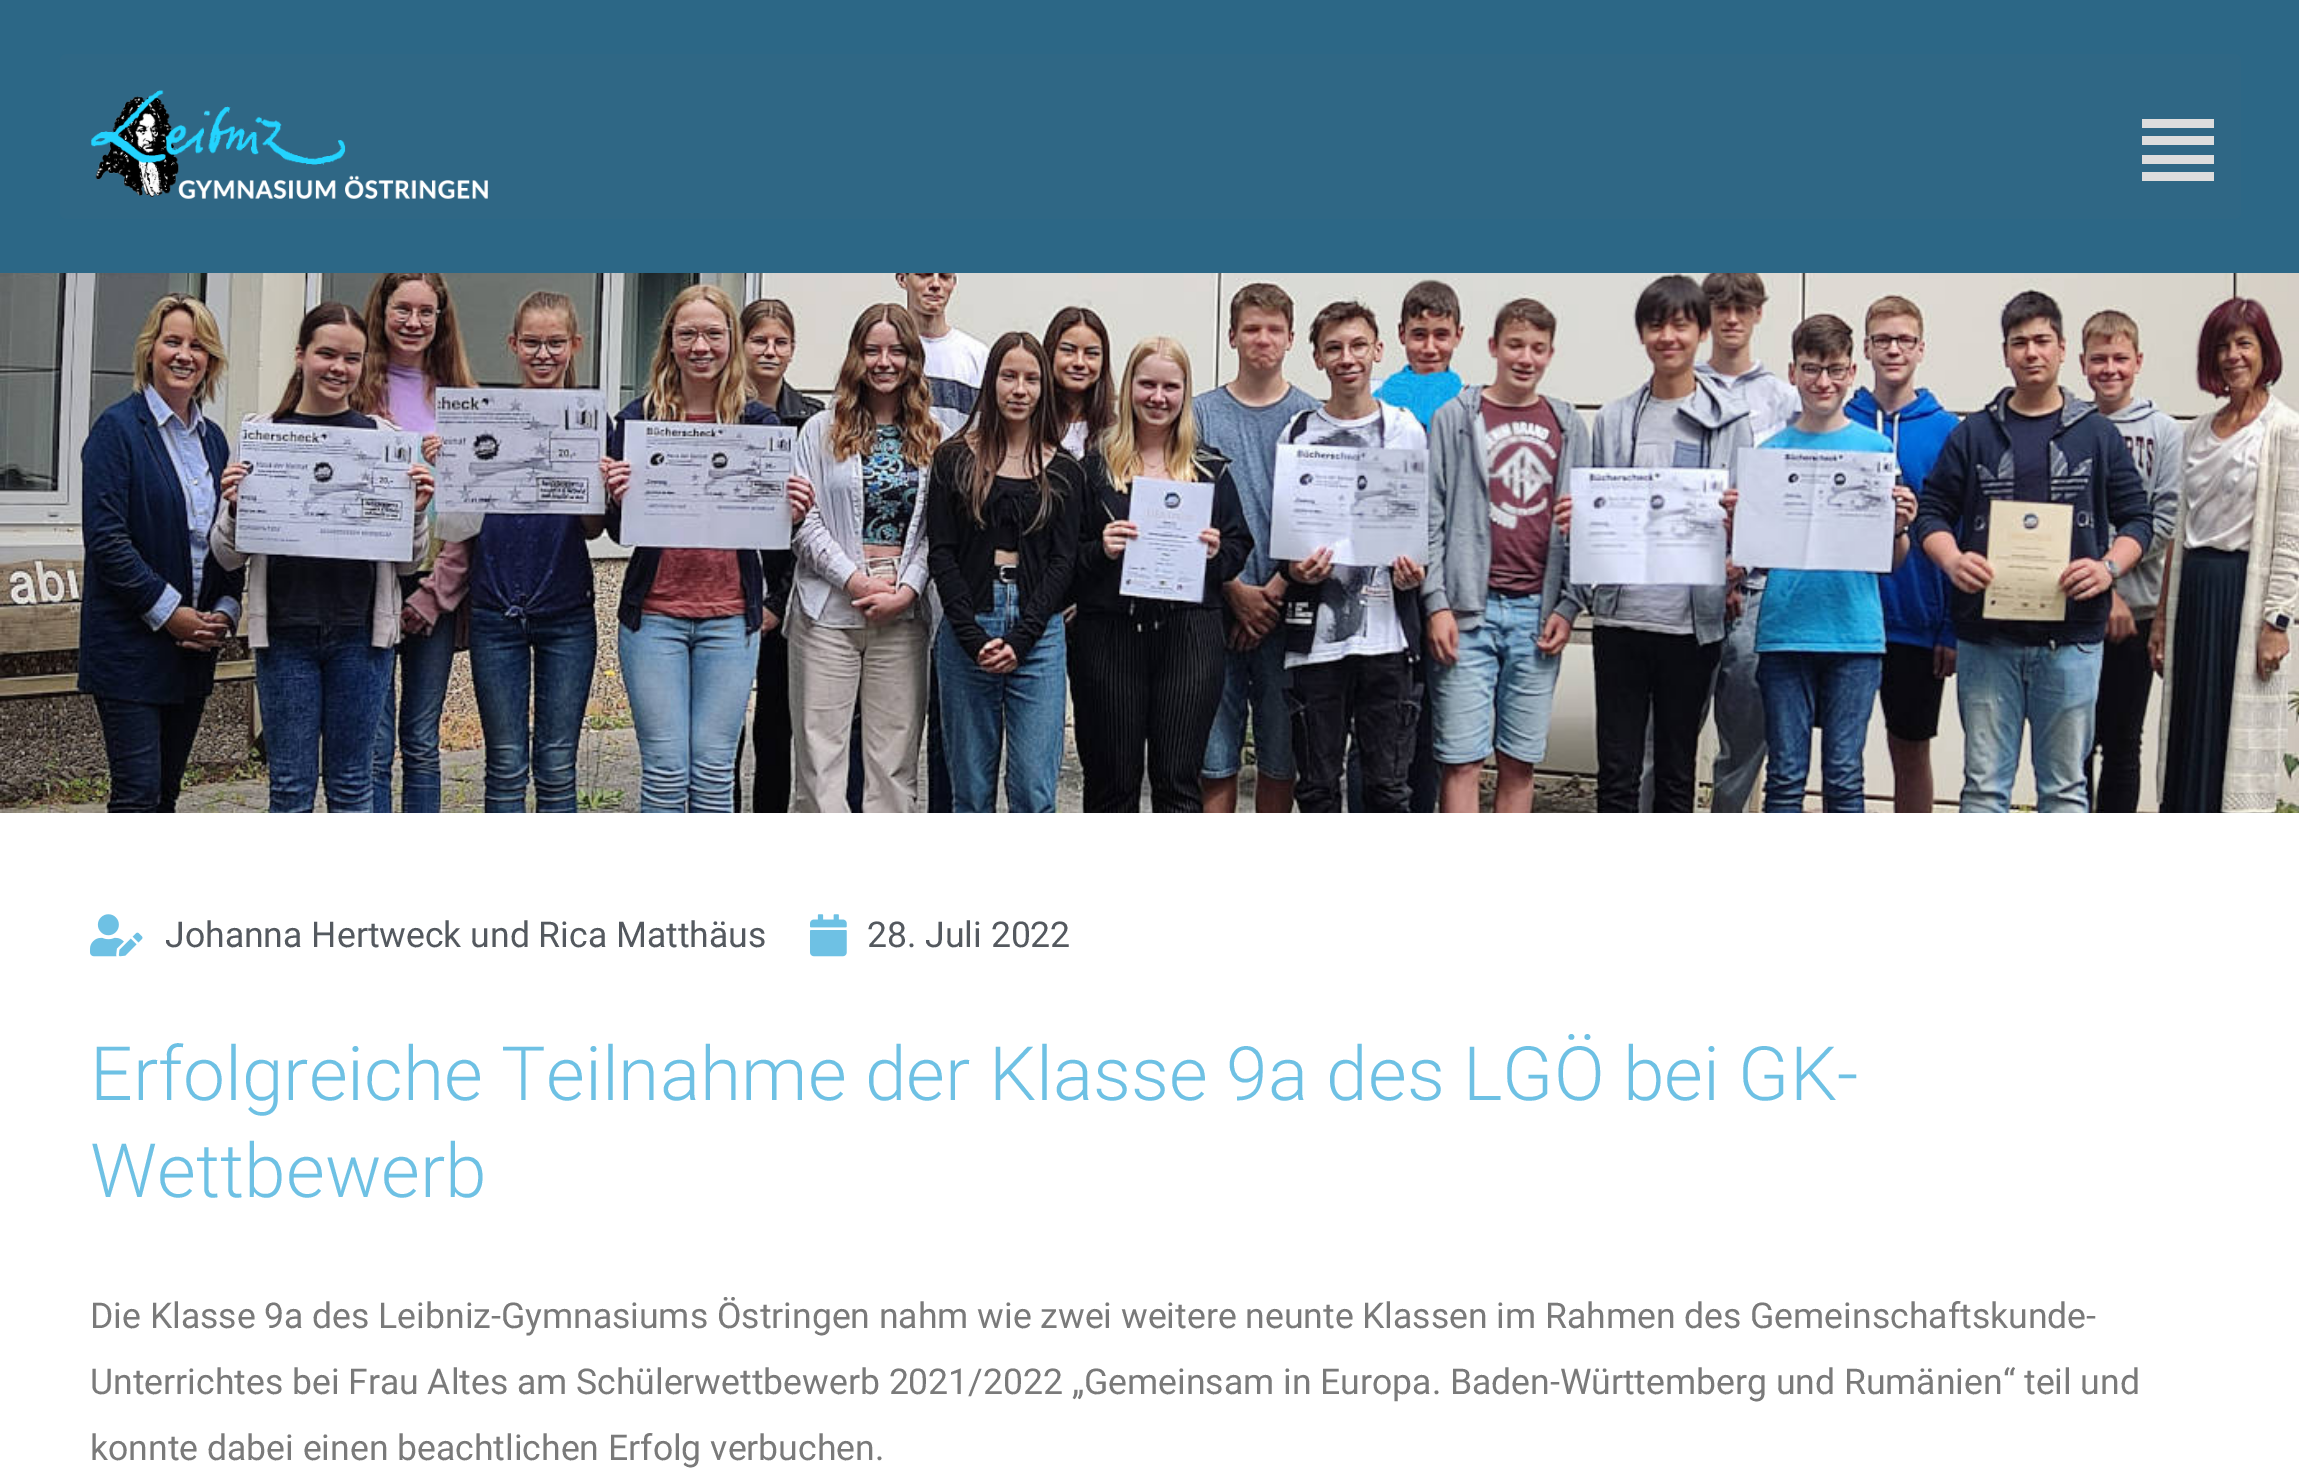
%!PS-Adobe-3.0
%%BoundingBox: 0 0 2299 1473
%%LanguageLevel: 3
%%Pages: 1
%%EndComments
%%BeginProlog
/m { moveto } bind def
/l { lineto } bind def
/h { closepath } bind def
/f { fill } bind def
/fn { [ exch dup neg 0 0 3 -1 roll 0 0 ] selectfont } def
/tx { moveto show } def
/bx { rectfill } def
/rr { 5 dict begin { /r /h /w /y /x } { exch def } forall
  x r add y moveto x w add y 2 copy h add r arct x w add y h add x 1 index r arct
  x y h add x y r arct x y 2 copy exch w add exch r arct closepath end } def
/im { 5 dict begin { /h /w /y /x /name } { exch def } forall
  gsave x y translate w h scale
  w h 8 [w 0 0 h 0 0] name (r) file false 3 colorimage grestore end } def
%%EndProlog
%%BeginSetup
<< /PageSize [2299 1473] >> setpagedevice
%%EndSetup
%%Page: 1 1
0 1473 translate 1 -1 scale
4 setmiterlimit
1 setgray
0 0 2299 1473 bx
0.173 0.404 0.525 setrgbcolor
0 0 2299 273 bx
0.184 0.404 0.522 setrgbcolor
60 54 2181 165 6 rr f
(image0.raw) 91 90 397 109 im
0.867 setgray
2142 119 m 2214 119 l 2214 128 l 2142 128 l h 2142 136 m 2214 136 l 2214 145 l 2142 145 l h 2142 155 m 2214 155 l 2214 164 l 2142 164 l h 2142 172 m 2214 172 l 2214 181 l 2142 181 l h f
(image1.raw) 0 273 2299 540 im
(image2.raw) 90 914 53 43 im
/Roboto-Regular 35.57 fn
0.329 0.349 0.373 setrgbcolor
(Johanna Hertweck und Rica Matthäus) 165 947 tx
(image3.raw) 810 914 37 43 im
(28. Juli 2022) 867 947 tx
/Roboto-Light 75 fn
0.431 0.757 0.894 setrgbcolor
(Erfolgreiche Teilnahme der Klasse 9a des LGÖ bei GK-) 90 1100 tx
(Wettbewerb) 90 1197 tx
/Roboto-Regular 35.57 fn
0.478 setgray
90 1328 m -0.1 0 32 (Die Klasse 9a des Leibniz-Gymnasiums Östringen nahm wie zwei weitere neunte Klassen im Rahmen des Gemeinschaftskunde-) widthshow
90 1394 m -0.1 0 32 (Unterrichtes bei Frau Altes am Schülerwettbewerb 2021/2022 „Gemeinsam in Europa. Baden-Württemberg und Rumänien“ teil und) widthshow
(konnte dabei einen beachtlichen Erfolg verbuchen.) 90 1460 tx
showpage
%%EOF
